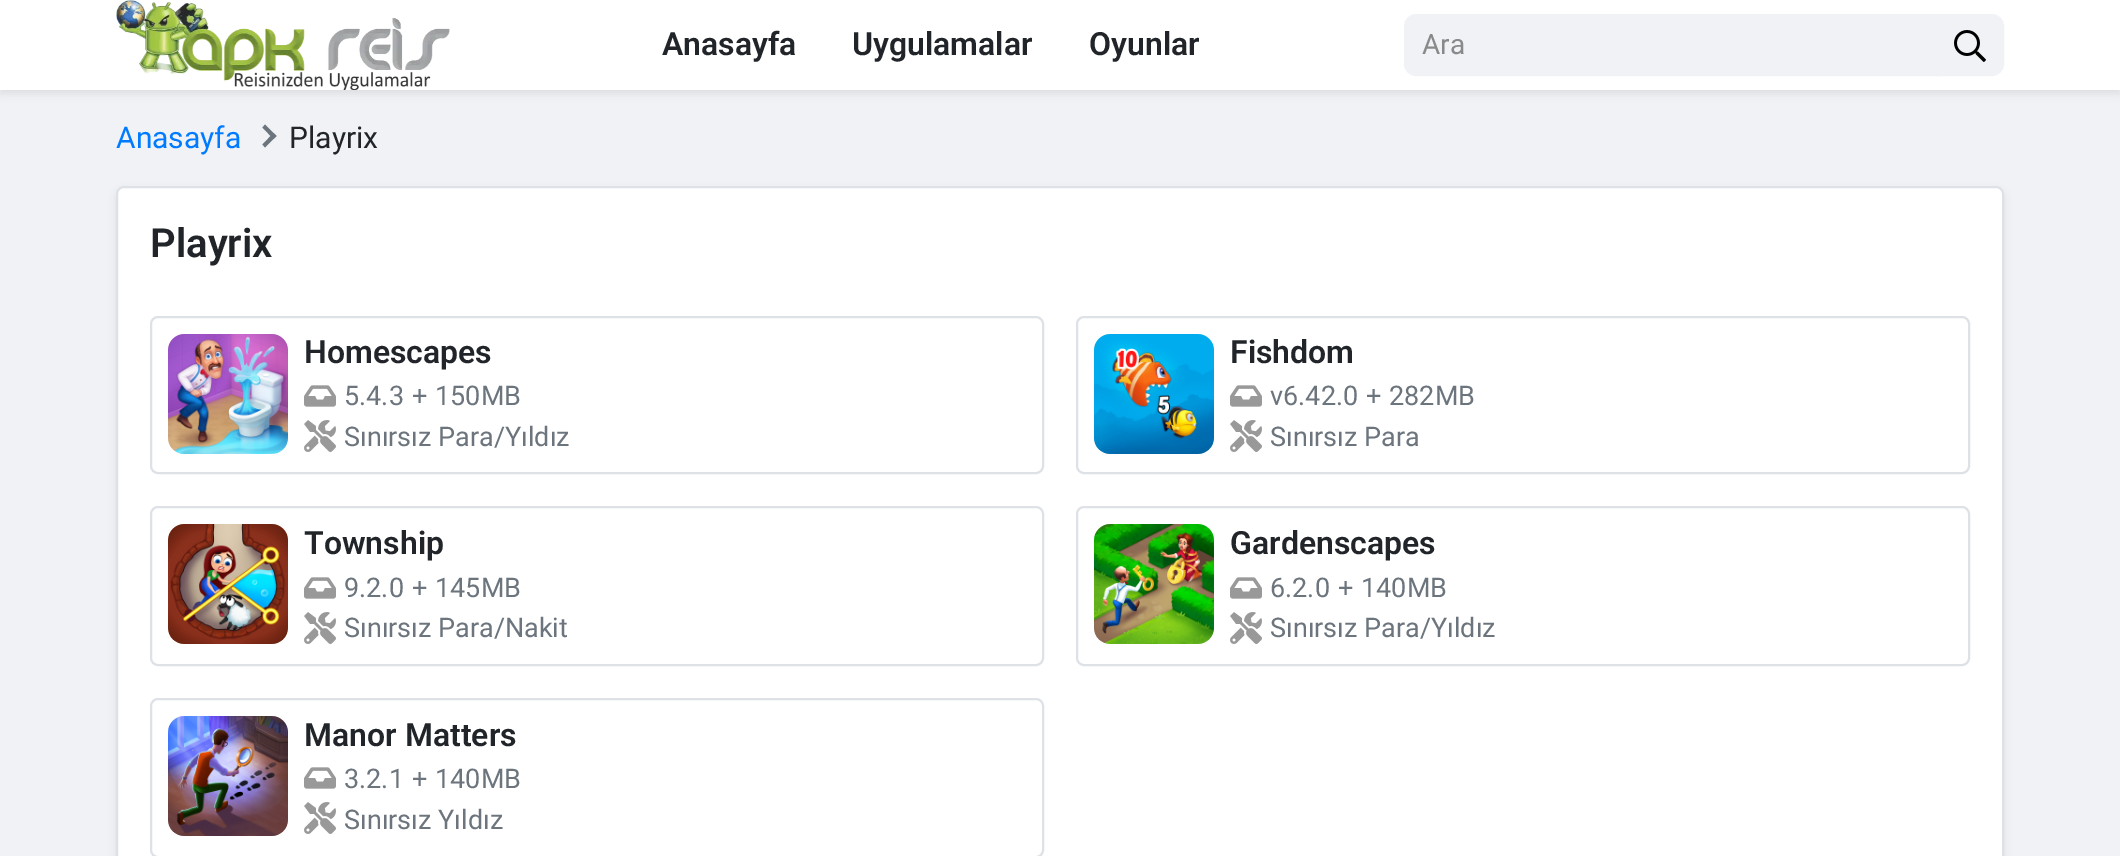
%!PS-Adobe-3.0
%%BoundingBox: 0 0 2120 856
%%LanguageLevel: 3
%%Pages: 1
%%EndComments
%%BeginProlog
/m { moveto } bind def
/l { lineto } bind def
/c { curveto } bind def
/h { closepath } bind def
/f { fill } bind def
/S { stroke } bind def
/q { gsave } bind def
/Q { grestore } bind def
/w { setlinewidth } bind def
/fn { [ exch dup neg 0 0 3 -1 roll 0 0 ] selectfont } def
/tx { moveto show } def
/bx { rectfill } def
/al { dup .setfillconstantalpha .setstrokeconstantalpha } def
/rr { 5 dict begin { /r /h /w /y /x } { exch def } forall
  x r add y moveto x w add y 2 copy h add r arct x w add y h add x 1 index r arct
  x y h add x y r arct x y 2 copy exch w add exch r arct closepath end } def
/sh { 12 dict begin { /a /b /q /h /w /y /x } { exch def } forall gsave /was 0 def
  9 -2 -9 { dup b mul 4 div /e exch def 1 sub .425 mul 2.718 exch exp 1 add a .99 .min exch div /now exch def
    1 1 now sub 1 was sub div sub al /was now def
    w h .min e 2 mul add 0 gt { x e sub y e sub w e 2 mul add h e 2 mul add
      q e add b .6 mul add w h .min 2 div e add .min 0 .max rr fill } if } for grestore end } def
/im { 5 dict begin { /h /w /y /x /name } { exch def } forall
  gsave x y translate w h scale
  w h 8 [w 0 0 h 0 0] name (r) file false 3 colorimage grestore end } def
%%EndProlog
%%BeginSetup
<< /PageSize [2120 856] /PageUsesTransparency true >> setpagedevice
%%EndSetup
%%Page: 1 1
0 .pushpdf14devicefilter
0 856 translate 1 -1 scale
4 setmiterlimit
0.941 0.949 0.961 setrgbcolor
0 0 2120 856 bx
0 setgray
0 4 2120 90 0 4 0.07 sh
1 setgray
0 0 2120 90 bx
(image0.raw) 116 0 334 90 im
/Roboto-SemiBold 32 fn
0.129 0.145 0.161 setrgbcolor
(Anasayfa) 662 55 tx
(Uygulamalar) 852 55 tx
(Oyunlar) 1089 55 tx
0.941 0.949 0.961 setrgbcolor
1416 15 m 1937 15 l 1937 75 l 1416 75 l 1410 75 1405 70 1405 64 c 1405 26 l 1405 20 1410 15 1416 15 c h q f Q
2 w
S
/Roboto-Regular 28 fn
0.537 setgray
(Ara) 1422 54 tx
0.941 0.949 0.961 setrgbcolor
1937 15 m 1992 15 l 1998 15 2003 20 2003 26 c 2003 64 l 2003 70 1998 75 1992 75 c 1937 75 l h q f Q
S
(image1.raw) 1954 30 32 32 im
/Roboto-Regular 30 fn
0 0.482 1 setrgbcolor
(Anasayfa) 116 148 tx
0.424 0.459 0.49 setrgbcolor
265 124.5 m 276.5 136 l 273.5 139 l 262.5 127.5 l h f
273.5 133 m 276.5 136 l 265 147.5 l 262.5 144.5 l h f
0.129 0.145 0.161 setrgbcolor
(Playrix) 289 148 tx
0 setgray
116 190 1888 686 8 4 0.07 sh
1 setgray
117 187 1886 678 7 rr q f Q
0.871 0.886 0.902 setrgbcolor
S
/Roboto-SemiBold 40 fn
0.129 0.145 0.161 setrgbcolor
(Playrix) 150 257 tx
0.871 0.886 0.902 setrgbcolor
151 317 892 156 7 rr S
(image2.raw) 168 334 120 120 im
/Roboto-SemiBold 32 fn
0.129 0.145 0.161 setrgbcolor
(Homescapes) 304 363 tx
(image3.raw) 304 385 32 22 im
/Roboto-Regular 27 fn
0.424 0.459 0.49 setrgbcolor
(5.4.3) 344 405 tx
(+) 412 405 tx
(150MB) 435 405 tx
(image4.raw) 304 420 32 32 im
(Sınırsız Para/Yıldız) 344 446 tx
0.871 0.886 0.902 setrgbcolor
1077 317 892 156 7 rr S
(image5.raw) 1094 334 120 120 im
/Roboto-SemiBold 32 fn
0.129 0.145 0.161 setrgbcolor
(Fishdom) 1230 363 tx
(image3.raw) 1230 385 32 22 im
/Roboto-Regular 27 fn
0.424 0.459 0.49 setrgbcolor
(v6.42.0) 1270 405 tx
(+) 1366 405 tx
(282MB) 1389 405 tx
(image4.raw) 1230 420 32 32 im
(Sınırsız Para) 1270 446 tx
0.871 0.886 0.902 setrgbcolor
151 507 892 158 7 rr S
(image6.raw) 168 524 120 120 im
/Roboto-SemiBold 32 fn
0.129 0.145 0.161 setrgbcolor
(Township) 304 554 tx
(image3.raw) 304 577 32 22 im
/Roboto-Regular 27 fn
0.424 0.459 0.49 setrgbcolor
(9.2.0) 344 597 tx
(+) 412 597 tx
(145MB) 435 597 tx
(image4.raw) 304 612 32 32 im
(Sınırsız Para/Nakit) 344 637 tx
0.871 0.886 0.902 setrgbcolor
1077 507 892 158 7 rr S
(image7.raw) 1094 524 120 120 im
/Roboto-SemiBold 32 fn
0.129 0.145 0.161 setrgbcolor
(Gardenscapes) 1230 554 tx
(image3.raw) 1230 577 32 22 im
/Roboto-Regular 27 fn
0.424 0.459 0.49 setrgbcolor
(6.2.0) 1270 597 tx
(+) 1338 597 tx
(140MB) 1361 597 tx
(image4.raw) 1230 612 32 32 im
(Sınırsız Para/Yıldız) 1270 637 tx
0.871 0.886 0.902 setrgbcolor
151 699 892 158 7 rr S
(image8.raw) 168 716 120 120 im
/Roboto-SemiBold 32 fn
0.129 0.145 0.161 setrgbcolor
(Manor Matters) 304 746 tx
(image3.raw) 304 767 32 22 im
/Roboto-Regular 27 fn
0.424 0.459 0.49 setrgbcolor
(3.2.1) 344 788 tx
(+) 412 788 tx
(140MB) 435 788 tx
(image4.raw) 304 802 32 32 im
(Sınırsız Yıldız) 344 829 tx
.poppdf14devicefilter showpage
%%EOF
